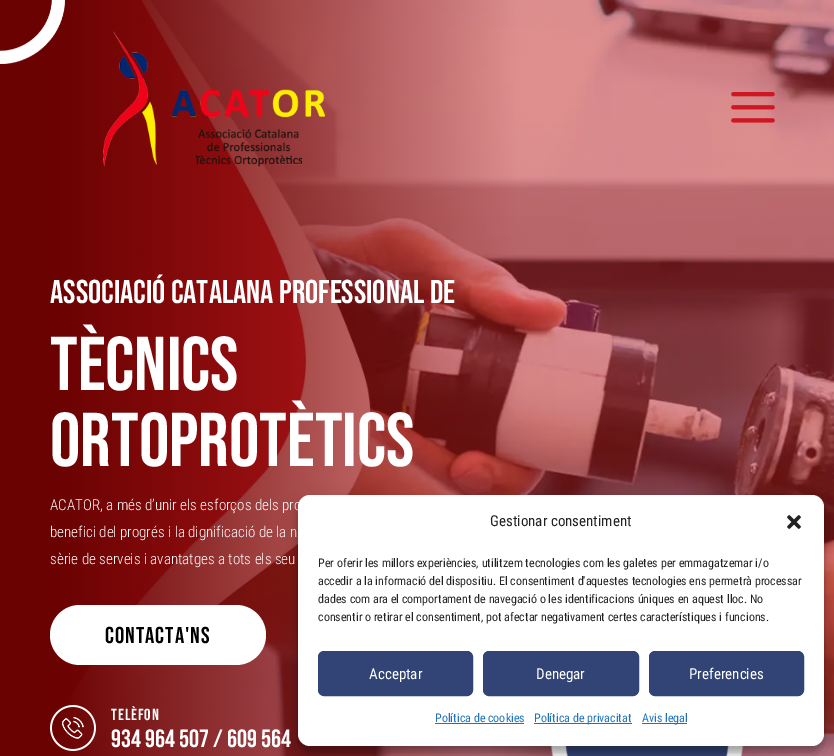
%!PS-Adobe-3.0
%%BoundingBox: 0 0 834 756
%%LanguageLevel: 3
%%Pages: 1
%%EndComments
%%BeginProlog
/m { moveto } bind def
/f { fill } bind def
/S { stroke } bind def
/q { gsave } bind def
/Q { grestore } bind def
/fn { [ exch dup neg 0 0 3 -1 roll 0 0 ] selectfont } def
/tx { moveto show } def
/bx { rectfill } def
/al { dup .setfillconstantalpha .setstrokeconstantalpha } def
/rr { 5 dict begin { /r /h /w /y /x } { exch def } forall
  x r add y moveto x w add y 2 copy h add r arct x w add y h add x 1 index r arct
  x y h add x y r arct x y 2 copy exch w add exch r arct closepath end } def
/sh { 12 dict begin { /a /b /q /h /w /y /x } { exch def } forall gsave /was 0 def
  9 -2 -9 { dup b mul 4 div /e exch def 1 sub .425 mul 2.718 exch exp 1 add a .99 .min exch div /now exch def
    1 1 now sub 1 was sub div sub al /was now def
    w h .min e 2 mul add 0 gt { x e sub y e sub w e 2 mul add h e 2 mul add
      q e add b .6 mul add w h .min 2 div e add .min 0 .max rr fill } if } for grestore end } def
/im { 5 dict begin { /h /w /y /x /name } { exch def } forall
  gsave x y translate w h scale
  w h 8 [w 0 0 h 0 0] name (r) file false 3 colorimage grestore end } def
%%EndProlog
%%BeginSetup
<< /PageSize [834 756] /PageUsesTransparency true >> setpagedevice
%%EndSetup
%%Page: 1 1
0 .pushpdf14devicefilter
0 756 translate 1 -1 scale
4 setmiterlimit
1 setgray
0 0 834 756 bx
(image0.raw) 0 0 834 756 im
(image1.raw) 0 0 65 64 im
(image2.raw) 103 31 222 136 im
(image3.raw) 731 92 44 31 im
/BebasNeue-Regular 33 fn
(associació catalana professional de) 50 303 tx
/BebasNeue-Regular 76 fn
(tècnics) 50 390 tx
(ortoprotètics) 50 466 tx
/RobotoCondensed-Light 15 fn
(ACATOR, a més d’unir els esforços dels pro) 50 510 tx
(benefici del progrés i la dignificació de la n) 50 537 tx
(sèrie de serveis i avantatges a tots els seu) 50 564 tx
50 605 216 60 30 rr f
/BebasNeue-Regular 23 fn
0 setgray
105 643 m 1 0 (CONTACTA'NS) ashow
(image4.raw) 50 705 46 46 im
/BebasNeue-Regular 16 fn
1 setgray
111 720 m 1 0 (TELÈFON) ashow
/BebasNeue-Regular 25 fn
(934 964 507 / 609 564) 111 747 tx
(image5.raw) 550 746 194 10 im
0 setgray
298 501 526 251 12 3 0.23 sh
298 505 526 251 12 10 0.19 sh
1 setgray
298 495 526 251 12 rr f
/RobotoCondensed-Regular 15 fn
0.133 setgray
(Gestionar consentiment) 490 526 tx
(image6.raw) 787 515 14 14 im
/RobotoCondensed-Regular 12 fn
(Per oferir les millors experiències, utilitzem tecnologies com les galetes per emmagatzemar i/o) 318 567 tx
(accedir a la informació del dispositiu. El consentiment d'aquestes tecnologies ens permetrà processar) 318 585 tx
(dades com ara el comportament de navegació o les identificacions úniques en aquest lloc. No) 318 603 tx
(consentir o retirar el consentiment, pot afectar negativament certes característiques i funcions.) 318 621 tx
0.196 0.267 0.463 setrgbcolor
318.5 651.5 154 44 5.5 rr q f Q
S
/RobotoCondensed-Regular 15 fn
1 setgray
(Acceptar) 369 679 tx
0.196 0.267 0.463 setrgbcolor
483.5 651.5 155 44 5.5 rr q f Q
S
1 setgray
(Denegar) 536 679 tx
0.196 0.267 0.463 setrgbcolor
649.5 651.5 154 44 5.5 rr q f Q
S
1 setgray
(Preferencies) 689 679 tx
/RobotoCondensed-Regular 12 fn
0.118 0.451 0.745 setrgbcolor
(Política de cookies) 435 722 tx
435 723 89 1 bx
534 723 98 1 bx
(Política de privacitat) 534 722 tx
642 723 45 1 bx
(Avis legal) 642 722 tx
.poppdf14devicefilter showpage
%%EOF
